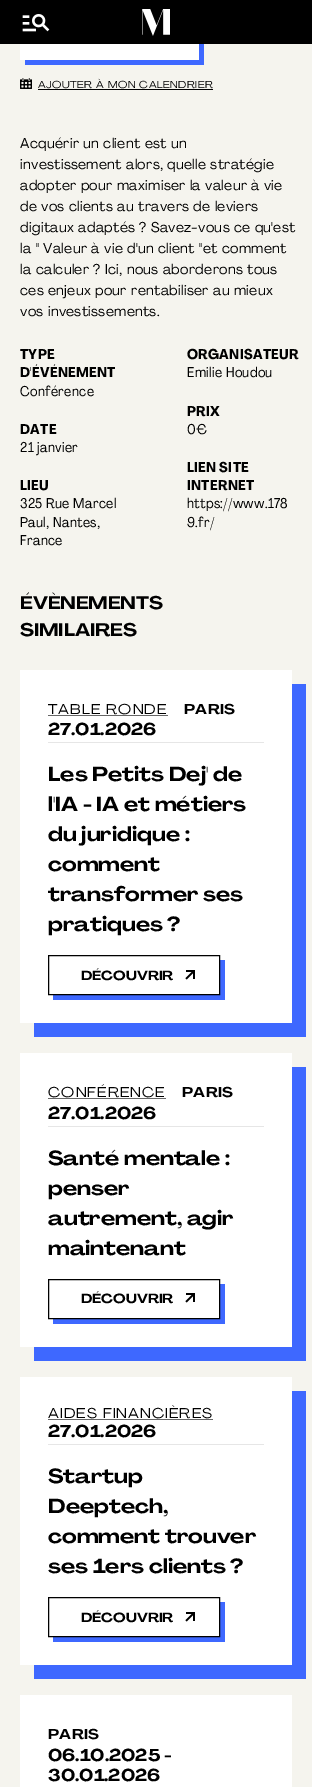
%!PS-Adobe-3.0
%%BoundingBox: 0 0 312 1787
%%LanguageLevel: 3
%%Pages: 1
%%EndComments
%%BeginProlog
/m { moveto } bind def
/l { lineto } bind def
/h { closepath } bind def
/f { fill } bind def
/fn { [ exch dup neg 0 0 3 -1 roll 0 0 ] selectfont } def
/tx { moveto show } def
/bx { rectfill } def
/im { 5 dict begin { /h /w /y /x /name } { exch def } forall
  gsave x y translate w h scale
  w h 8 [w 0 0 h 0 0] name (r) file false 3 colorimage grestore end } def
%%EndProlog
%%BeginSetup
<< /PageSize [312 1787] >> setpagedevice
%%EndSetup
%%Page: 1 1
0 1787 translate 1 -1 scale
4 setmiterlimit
0.961 0.957 0.933 setrgbcolor
0 0 312 1787 bx
0.243 0.408 1 setrgbcolor
25 60 m 25 65 l 204 65 l 204 25 l 199 25 l 199 60 l h f
0 setgray
0 0 312 44 bx
(image0.raw) 22 14 28 18 im
(image1.raw) 142 9 28 27 im
1 setgray
20 44 179 16 bx
(image2.raw) 20 78 12 11 im
/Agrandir-Regular 10 fn
0 setgray
38 88 m 0.5 0 (AJOUTER À MON CALENDRIER) ashow
38 89 175 1 bx
/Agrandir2-Regular 14 fn
20 148 m 0.3 0 (Acquérir un client est un) ashow
20 169 m 0.3 0 (investissement alors, quelle stratégie) ashow
20 190 m 0.3 0 (adopter pour maximiser la valeur à vie) ashow
20 211 m 0.3 0 (de vos clients au travers de leviers) ashow
20 232 m 0.3 0 (digitaux adaptés ? Savez-vous ce qu'est) ashow
20 253 m 0.3 0 (la " Valeur à vie d'un client "et comment) ashow
20 274 m 0.3 0 (la calculer ? Ici, nous aborderons tous) ashow
20 295 m 0.3 0 (ces enjeux pour rentabiliser au mieux) ashow
20 316 m 0.3 0 (vos investissements.) ashow
/Agrandir-Bold 14 fn
20 359 m 0.3 0 (TYPE) ashow
20 377 m 0.3 0 (D'ÉVÉNEMENT) ashow
/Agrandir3-Regular 14 fn
20 396 m 0.3 0 (Conférence) ashow
/Agrandir-Bold 14 fn
187 359 m 0.3 0 (ORGANISATEUR) ashow
/Agrandir3-Regular 14 fn
187 377 m 0.3 0 (Emilie Houdou) ashow
/Agrandir-Bold 14 fn
187 416 m 0.3 0 (PRIX) ashow
/Agrandir3-Regular 14 fn
187 434 m 0.3 0 (0€) ashow
/Agrandir-Bold 14 fn
20 434 m 0.3 0 (DATE) ashow
/Agrandir3-Regular 14 fn
20 452 m 0.3 0 (21 janvier) ashow
/Agrandir-Bold 14 fn
20 490 m 0.3 0 (LIEU) ashow
/Agrandir3-Regular 14 fn
20 508 m 0.3 0 (325 Rue Marcel) ashow
20 527 m 0.3 0 (Paul, Nantes,) ashow
20 545 m 0.3 0 (France) ashow
/Agrandir-Bold 14 fn
187 472 m 0.3 0 (LIEN SITE) ashow
187 490 m 0.3 0 (INTERNET) ashow
/Agrandir3-Regular 14 fn
187 508 m 0.3 0 (https://www.178) ashow
187 527 m 0.3 0 (9.fr/) ashow
/Agrandir2-Bold 18 fn
(ÉVÈNEMENTS) 20 609 tx
(SIMILAIRES) 20 636 tx
0.243 0.408 1 setrgbcolor
34 1023 m 34 1037 l 306 1037 l 306 684 l 292 684 l 292 1023 l h f
1 setgray
20 670 272 353 bx
0.902 setgray
48 742 216 1 bx
/Agrandir-Regular 14 fn
0 setgray
48 714 m 1.1 0 (TABLE RONDE) ashow
0.4 setgray
48 715 120 1 bx
/Agrandir2-Bold 14 fn
0 setgray
184 714 m 0.3 0 (PARIS) ashow
/Agrandir2-Bold 17 fn
(27.01.2026) 48 735 tx
/Agrandir2-Bold 20 fn
(Les Petits Dej' de) 48 781 tx
(l'IA - IA et métiers) 48 811 tx
(du juridique :) 48 841 tx
(comment) 48 871 tx
(transformer ses) 48 901 tx
(pratiques ?) 48 931 tx
0.243 0.408 1 setrgbcolor
53 995 m 53 1000 l 225 1000 l 225 960 l 220 960 l 220 995 l h f
0 setgray
48.5 955.5 171 39 rectstroke
/Agrandir2-Bold 13 fn
(DÉCOUVRIR) 81 980 tx
(image3.raw) 185 970 10 10 im
0.243 0.408 1 setrgbcolor
34 1347 m 34 1361 l 306 1361 l 306 1067 l 292 1067 l 292 1347 l h f
1 setgray
20 1053 272 294 bx
0.902 setgray
48 1126 216 1 bx
/Agrandir-Regular 14 fn
0 setgray
48 1097 m 1.1 0 (CONFÉRENCE) ashow
0.4 setgray
48 1098 118 1 bx
/Agrandir2-Bold 14 fn
0 setgray
182 1097 m 0.3 0 (PARIS) ashow
/Agrandir2-Bold 17 fn
(27.01.2026) 48 1119 tx
/Agrandir2-Bold 20 fn
(Santé mentale :) 48 1165 tx
(penser) 48 1195 tx
(autrement, agir) 48 1225 tx
(maintenant) 48 1255 tx
0.243 0.408 1 setrgbcolor
53 1319 m 53 1324 l 225 1324 l 225 1284 l 220 1284 l 220 1319 l h f
0 setgray
48.5 1279.5 171 39 rectstroke
/Agrandir2-Bold 13 fn
(DÉCOUVRIR) 81 1303 tx
(image3.raw) 185 1293 10 10 im
0.243 0.408 1 setrgbcolor
34 1665 m 34 1679 l 306 1679 l 306 1391 l 292 1391 l 292 1665 l h f
1 setgray
20 1377 272 288 bx
0.902 setgray
48 1444 216 1 bx
/Agrandir-Regular 14 fn
0 setgray
48 1418 m 1.1 0 (AIDES FINANCIÈRES) ashow
0.4 setgray
48 1419 165 1 bx
/Agrandir2-Bold 17 fn
0 setgray
(27.01.2026) 48 1437 tx
/Agrandir2-Bold 20 fn
(Startup) 48 1483 tx
(Deeptech,) 48 1513 tx
(comment trouver) 48 1543 tx
(ses 1ers clients ?) 48 1573 tx
0.243 0.408 1 setrgbcolor
53 1637 m 53 1642 l 225 1642 l 225 1602 l 220 1602 l 220 1637 l h f
0 setgray
48.5 1597.5 171 39 rectstroke
/Agrandir2-Bold 13 fn
(DÉCOUVRIR) 81 1622 tx
(image3.raw) 185 1612 10 10 im
1 setgray
20 1695 272 92 bx
/Agrandir2-Bold 14 fn
0 setgray
48 1739 m 0.3 0 (PARIS) ashow
/Agrandir2-Bold 17 fn
(06.10.2025 -) 48 1761 tx
(30.01.2026) 48 1781 tx
showpage
%%EOF
